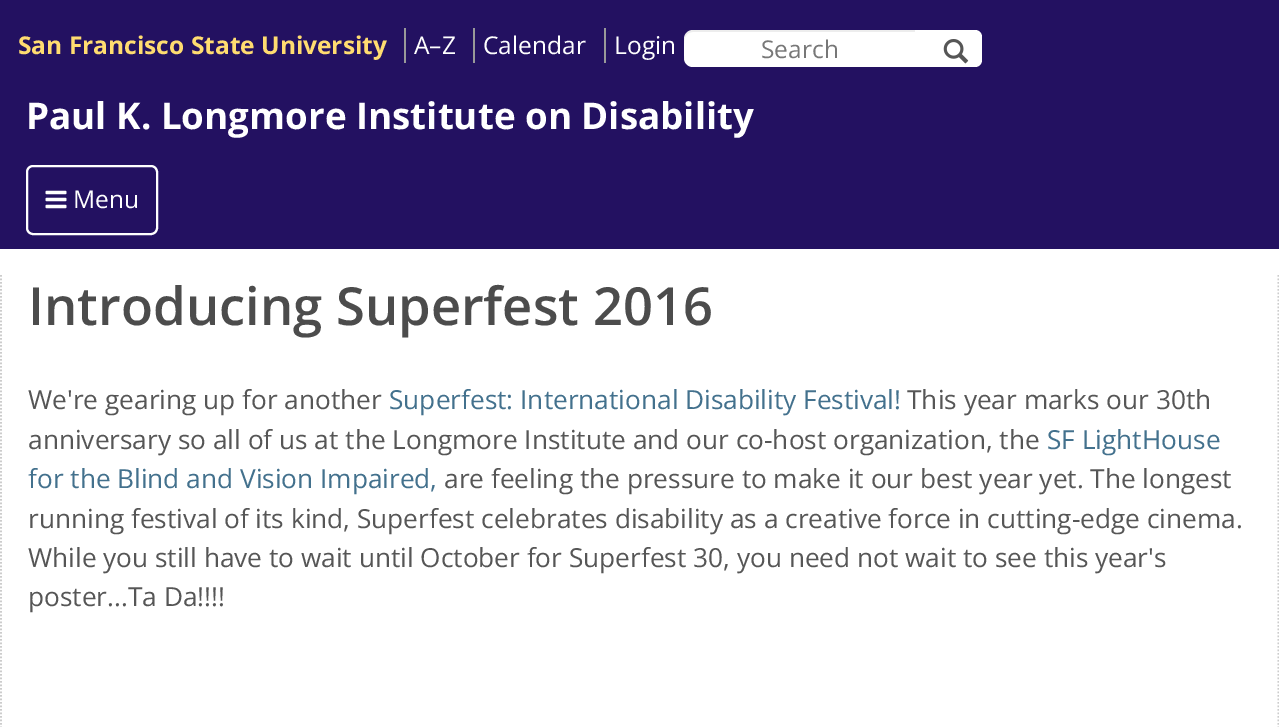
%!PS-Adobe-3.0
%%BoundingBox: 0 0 1279 727
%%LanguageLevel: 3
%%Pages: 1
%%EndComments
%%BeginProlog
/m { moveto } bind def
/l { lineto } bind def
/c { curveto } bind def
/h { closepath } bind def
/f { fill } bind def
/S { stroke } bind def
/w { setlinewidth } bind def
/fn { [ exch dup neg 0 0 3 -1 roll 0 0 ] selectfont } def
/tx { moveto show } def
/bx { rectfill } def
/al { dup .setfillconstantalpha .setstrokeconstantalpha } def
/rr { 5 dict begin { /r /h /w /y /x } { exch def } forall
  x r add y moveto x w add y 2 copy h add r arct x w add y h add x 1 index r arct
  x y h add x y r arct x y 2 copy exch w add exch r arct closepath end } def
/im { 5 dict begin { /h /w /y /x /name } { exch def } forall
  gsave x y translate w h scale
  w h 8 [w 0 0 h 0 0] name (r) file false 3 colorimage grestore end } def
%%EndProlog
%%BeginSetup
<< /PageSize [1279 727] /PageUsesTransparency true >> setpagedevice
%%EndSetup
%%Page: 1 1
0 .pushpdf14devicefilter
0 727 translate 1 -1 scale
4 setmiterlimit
1 setgray
0 0 1279 727 bx
0.137 0.067 0.38 setrgbcolor
0 0 1279 249 bx
0.6 setgray
404 28 2 35 bx
/OpenSans-Bold 24.5 fn
1 0.863 0.439 setrgbcolor
(San Francisco State University) 18 54 tx
0.6 setgray
473 28 2 35 bx
/OpenSans-Regular 24.5 fn
1 setgray
(A–Z) 414 54 tx
0.6 setgray
604 28 2 35 bx
1 setgray
(Calendar) 483 54 tx
(Login) 614 54 tx
914 30 m 975 30 l 979 30 982 33 982 37 c 982 60 l 982 64 979 67 975 67 c 914 67 l h f
693 30 m 915 30 l 915 67 l 693 67 l 688 67 684 63 684 58 c 684 39 l 684 34 688 30 693 30 c h f
0.07 al
0 setgray
693 32 m 915 32 l 915 30 l 693 30 l 688 30 684 34 684 39 c 684 44 l 684 38 686 32 693 32 c h 685 62 m 684 56 l 684 58 684 60 685 62 c h eofill
1 al
0.467 setgray
(Search) 761 58 tx
(image0.raw) 943 39 26 25 im
/OpenSans-Bold 36.75 fn
1 setgray
(Paul K. Longmore Institute on Disability) 26 129 tx
2 w
27 166 130 68 6 rr S
(image1.raw) 45 190 22 19 im
/OpenSans-Regular 24.5 fn
(Menu) 73 208 tx
0.8 setgray
1.8 w
[1.75 1.75] 0 setdash
1278.5 275 m 1278.5 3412.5 l S
1 275 m 1 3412.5 l S
/OpenSans-SemiBold 52.5 fn
0.298 setgray
(Introducing Superfest 2016) 28 325 tx
/OpenSans-Regular 26.25 fn
0.337 setgray
(We're gearing up for another) 28 409 tx
0.263 0.443 0.553 setrgbcolor
(Superfest: International Disability Festival!) 389 409 tx
0.337 setgray
(This year marks our 30th) 907 409 tx
(anniversary so all of us at the Longmore Institute and our co-host organization, the) 28 449 tx
0.263 0.443 0.553 setrgbcolor
(SF LightHouse) 1047 449 tx
(for the Blind and Vision Impaired,) 28 488 tx
0.337 setgray
(are feeling the pressure to make it our best year yet. The longest) 444 488 tx
(running festival of its kind, Superfest celebrates disability as a creative force in cutting-edge cinema.) 28 528 tx
(While you still have to wait until October for Superfest 30, you need not wait to see this year's) 28 567 tx
(poster...Ta Da!!!!) 28 606 tx
.poppdf14devicefilter showpage
%%EOF
